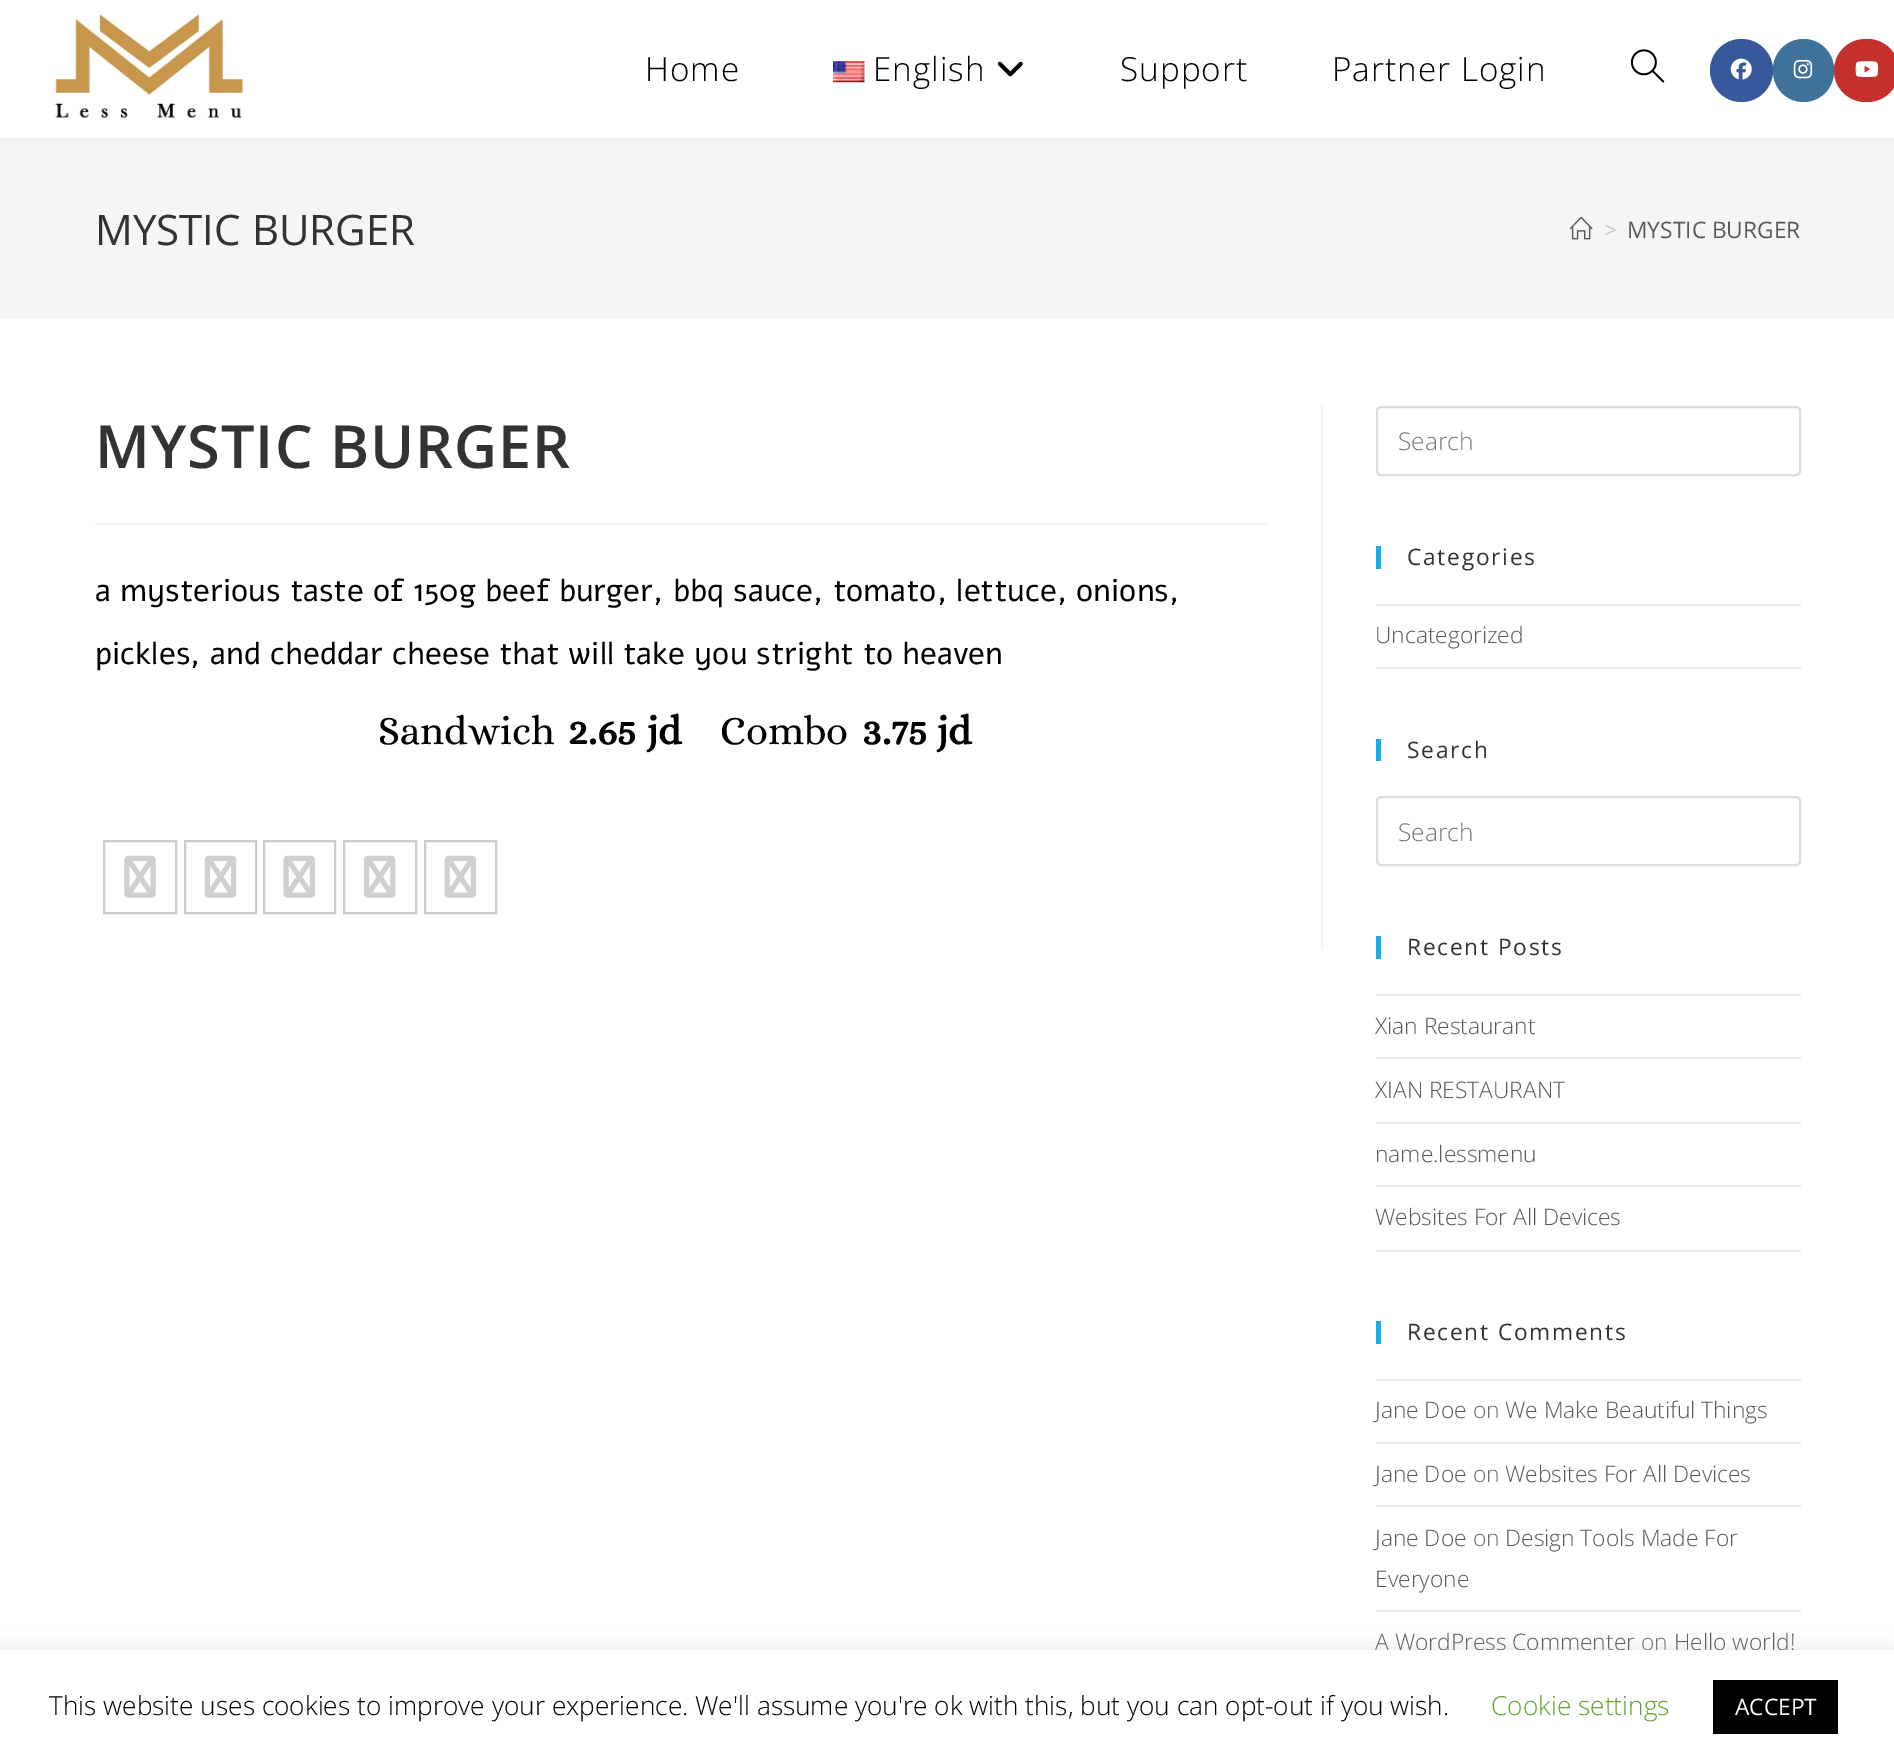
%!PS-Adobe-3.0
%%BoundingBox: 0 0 1894 1763
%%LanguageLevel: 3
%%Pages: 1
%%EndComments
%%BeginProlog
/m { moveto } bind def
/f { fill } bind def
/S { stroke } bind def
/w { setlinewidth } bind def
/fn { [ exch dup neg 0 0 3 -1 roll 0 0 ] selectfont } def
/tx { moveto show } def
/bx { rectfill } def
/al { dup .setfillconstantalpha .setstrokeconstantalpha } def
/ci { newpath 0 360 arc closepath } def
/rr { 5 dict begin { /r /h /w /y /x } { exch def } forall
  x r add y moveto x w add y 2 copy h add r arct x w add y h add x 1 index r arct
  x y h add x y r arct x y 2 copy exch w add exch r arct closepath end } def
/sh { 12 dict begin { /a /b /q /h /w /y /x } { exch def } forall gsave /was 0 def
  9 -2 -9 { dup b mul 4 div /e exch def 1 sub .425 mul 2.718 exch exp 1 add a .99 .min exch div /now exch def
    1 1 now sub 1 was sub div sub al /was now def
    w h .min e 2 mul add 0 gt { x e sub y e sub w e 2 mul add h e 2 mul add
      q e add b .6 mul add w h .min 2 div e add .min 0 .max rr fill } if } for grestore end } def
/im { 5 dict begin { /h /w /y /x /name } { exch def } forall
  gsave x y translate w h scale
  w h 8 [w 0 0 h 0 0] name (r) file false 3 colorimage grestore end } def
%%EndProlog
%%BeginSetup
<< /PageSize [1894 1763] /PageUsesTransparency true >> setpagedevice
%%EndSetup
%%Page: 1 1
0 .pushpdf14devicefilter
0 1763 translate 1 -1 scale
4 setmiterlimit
1 setgray
0 0 1894 1763 bx
0.945 setgray
0 138 1894 2 bx
(image0.raw) 55 14 189 105 im
/OpenSans-Light 33.25 fn
0 setgray
645 81 m 1 0 (Home) ashow
(image1.raw) 833 61 32 22 im
873 81 m 1 0 (English) ashow
(image2.raw) 997 61 26 16 im
1120 81 m 1 0 (Support) ashow
1332 81 m 1 0 (Partner Login) ashow
(image3.raw) 1630 49 35 34 im
0.216 0.345 0.608 setrgbcolor
1741.5 70.5 31.5 ci f
(image4.raw) 1730 58 22 22 im
0.247 0.447 0.608 setrgbcolor
1773 39 61 63 30.5 rr f
(image5.raw) 1793 59 20 20 im
0.769 0.188 0.169 setrgbcolor
1834 39 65 63 31.5 rr f
(image6.raw) 1855 61 23 16 im
0.961 setgray
0 140 1894 179 bx
/OpenSans-Regular 42 fn
0.2 setgray
(MYSTIC BURGER) 95 245 tx
(image7.raw) 1570 216 23 24 im
/OpenSans-Regular 22.75 fn
0.776 setgray
(>) 1604 238 tx
0.333 0.349 0.361 setrgbcolor
(MYSTIC BURGER) 1627 238 tx
0.945 setgray
1321 406 2 543 bx
95 523 1174 2 bx
/OpenSans-SemiBold 59.5 fn
0.2 setgray
95 468 m 1 0 (MYSTIC BURGER) ashow
/Alef-Regular 31.5 fn
0 setgray
(a mysterious taste of 150g beef burger, bbq sauce, tomato, lettuce, onions,) 95 601 tx
(pickles, and cheddar cheese that will take you stright to heaven) 95 664 tx
/Alice-Regular 40.25 fn
(Sandwich) 378 744 tx
/Alice-Bold 40.25 fn
(2.65 jd) 568 744 tx
/Alice-Regular 40.25 fn
(Combo) 720 744 tx
/Alice-Bold 40.25 fn
(3.75 jd) 862 744 tx
0.8 setgray
2 w
104 841 72 72 rectstroke
(image8.raw) 124 855 32 43 im
185 841 71 72 rectstroke
(image9.raw) 204 855 33 43 im
264 841 71 72 rectstroke
(image10.raw) 283 855 32 43 im
344 841 72 72 rectstroke
(image11.raw) 364 855 32 43 im
425 841 71 72 rectstroke
(image10.raw) 444 855 32 43 im
0.867 setgray
1377 407 423 68 4 rr S
/OpenSans-Light 24.5 fn
0.459 setgray
(Search) 1398 450 tx
0.075 0.686 0.941 setrgbcolor
1376 546 5 23 bx
/OpenSans-Regular 22.75 fn
0.2 setgray
1407 565 m 1.75 0 (Categories) ashow
0.914 setgray
1376 604 425 2 bx
1376 667 425 2 bx
/OpenSans-Light 22.75 fn
0.333 0.349 0.361 setrgbcolor
(Uncategorized) 1375 643 tx
0.075 0.686 0.941 setrgbcolor
1376 739 5 22 bx
/OpenSans-Regular 22.75 fn
0.2 setgray
1407 758 m 1.75 0 (Search) ashow
0.867 setgray
1377 797 423 68 4 rr S
/OpenSans-Light 24.5 fn
0.459 setgray
(Search) 1398 841 tx
0.075 0.686 0.941 setrgbcolor
1376 936 5 23 bx
/OpenSans-Regular 22.75 fn
0.2 setgray
1407 955 m 1.75 0 (Recent Posts) ashow
0.914 setgray
1376 994 425 2 bx
1376 1057 425 2 bx
/OpenSans-Light 22.75 fn
0.333 0.349 0.361 setrgbcolor
(Xian Restaurant) 1375 1034 tx
0.914 setgray
1376 1122 425 2 bx
0.333 0.349 0.361 setrgbcolor
(XIAN RESTAURANT) 1375 1098 tx
0.914 setgray
1376 1185 425 2 bx
0.333 0.349 0.361 setrgbcolor
(name.lessmenu) 1375 1162 tx
0.914 setgray
1376 1250 425 2 bx
0.333 0.349 0.361 setrgbcolor
(Websites For All Devices) 1375 1225 tx
0.075 0.686 0.941 setrgbcolor
1376 1321 5 23 bx
/OpenSans-Regular 22.75 fn
0.2 setgray
1407 1340 m 1.75 0 (Recent Comments) ashow
0.914 setgray
1376 1379 425 2 bx
1376 1442 425 2 bx
/OpenSans-Light 22.75 fn
0.333 0.349 0.361 setrgbcolor
(Jane Doe) 1375 1418 tx
0.439 0.427 0.42 setrgbcolor
(on) 1473 1418 tx
0.333 0.349 0.361 setrgbcolor
(We Make Beautiful Things) 1505 1418 tx
0.914 setgray
1376 1505 425 2 bx
0.333 0.349 0.361 setrgbcolor
(Jane Doe) 1375 1482 tx
0.439 0.427 0.42 setrgbcolor
(on) 1473 1482 tx
0.333 0.349 0.361 setrgbcolor
(Websites For All Devices) 1505 1482 tx
0.914 setgray
1376 1610 425 2 bx
0.333 0.349 0.361 setrgbcolor
(Jane Doe) 1375 1546 tx
0.439 0.427 0.42 setrgbcolor
(on) 1473 1546 tx
0.333 0.349 0.361 setrgbcolor
(Design Tools Made For) 1505 1546 tx
(Everyone) 1375 1587 tx
(A WordPress Commenter) 1375 1650 tx
0.439 0.427 0.42 setrgbcolor
(on) 1641 1650 tx
0.333 0.349 0.361 setrgbcolor
(Hello world!) 1674 1650 tx
0.675 0.671 0.671 setrgbcolor
0 1649 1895 113 0 9 0.3 sh
1 setgray
0 1650 1894 113 bx
/OpenSans-Light 26.25 fn
0 setgray
(This website uses cookies to improve your experience. We'll assume you're ok with this, but you can opt-out if you wish.) 49 1715 tx
0.384 0.639 0.161 setrgbcolor
(Cookie settings) 1491 1715 tx
0 setgray
1713 1680 125 54 bx
/OpenSans-Regular 22.75 fn
1 setgray
(ACCEPT) 1735 1715 tx
.poppdf14devicefilter showpage
%%EOF
